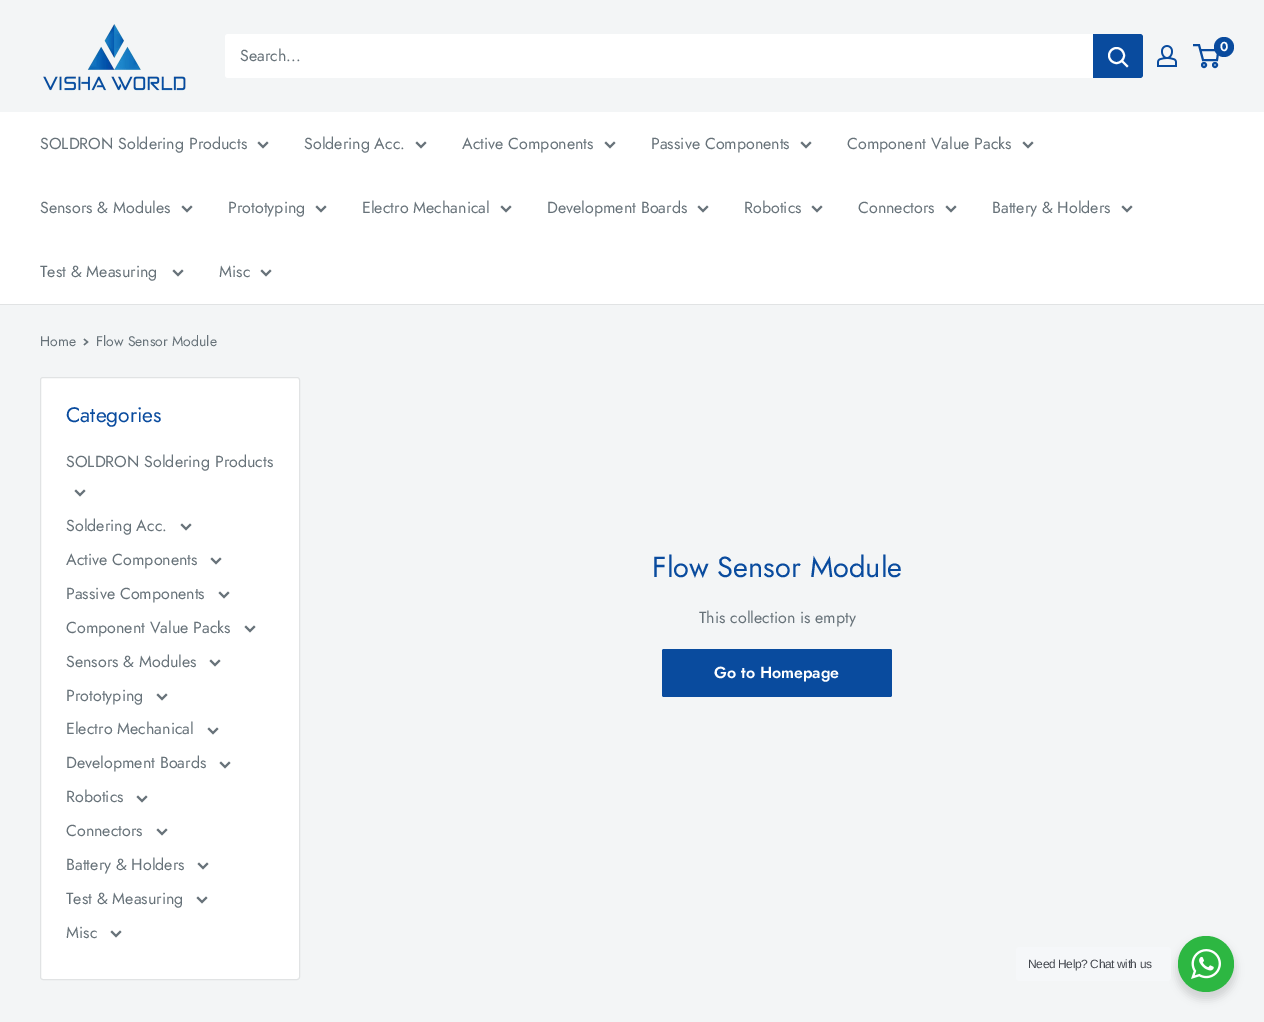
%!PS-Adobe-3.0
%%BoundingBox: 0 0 1264 1022
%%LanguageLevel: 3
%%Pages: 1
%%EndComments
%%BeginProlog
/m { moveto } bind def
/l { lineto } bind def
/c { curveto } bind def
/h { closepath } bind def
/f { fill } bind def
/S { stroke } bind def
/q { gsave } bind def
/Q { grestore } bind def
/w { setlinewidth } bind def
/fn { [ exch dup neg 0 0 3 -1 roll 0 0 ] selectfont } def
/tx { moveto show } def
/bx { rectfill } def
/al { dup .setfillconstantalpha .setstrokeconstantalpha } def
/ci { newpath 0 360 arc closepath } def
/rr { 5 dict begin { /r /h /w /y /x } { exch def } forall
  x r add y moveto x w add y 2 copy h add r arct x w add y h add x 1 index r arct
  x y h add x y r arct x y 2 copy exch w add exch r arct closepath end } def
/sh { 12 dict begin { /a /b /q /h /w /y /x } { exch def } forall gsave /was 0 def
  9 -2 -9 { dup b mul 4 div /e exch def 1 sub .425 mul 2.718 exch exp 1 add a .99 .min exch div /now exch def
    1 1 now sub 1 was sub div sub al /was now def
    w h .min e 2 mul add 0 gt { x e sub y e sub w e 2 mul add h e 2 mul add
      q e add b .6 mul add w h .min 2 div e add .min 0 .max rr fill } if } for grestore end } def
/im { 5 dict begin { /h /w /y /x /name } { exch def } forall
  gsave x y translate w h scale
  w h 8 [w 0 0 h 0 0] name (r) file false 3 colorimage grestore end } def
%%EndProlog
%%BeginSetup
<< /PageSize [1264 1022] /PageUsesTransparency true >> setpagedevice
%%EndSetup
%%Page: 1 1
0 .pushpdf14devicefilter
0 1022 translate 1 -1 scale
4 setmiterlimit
0.953 0.961 0.965 setrgbcolor
0 0 1264 1022 bx
(image0.raw) 43 24 143 67 im
(image1.raw) 1157 45 20 22 im
0.035 0.294 0.62 setrgbcolor
2 w
1204 65 2 ci S
1215 65 2 ci S
1200.5 50 m 1218.5 50 l 1217 60 l 1203 60 l 1199 45 l 1193 45 l S
1224 47 10 ci f
/Jost-SemiBold 13 fn
1 setgray
(0) 1220 51 tx
225 34 918 44 3 rr f
/Jost-Regular 16 fn
0.404 0.447 0.475 setrgbcolor
(Search...) 240 61 tx
0.035 0.294 0.62 setrgbcolor
1093 34 m 1140 34 l 1141.5 34 1143 35.5 1143 37 c 1143 75 l 1143 76.5 1141.5 78 1140 78 c 1093 78 l h f
1 setgray
2 setlinecap
1127 66 m 1122 61 l S
0 setlinecap
1116.5 55.5 7.5 ci S
0 112 1264 192 bx
0.882 0.89 0.894 setrgbcolor
0 304 1264 1 bx
0.404 0.447 0.475 setrgbcolor
(SOLDRON Soldering Products) 40 149 tx
2 setlinecap
267 143 m 263 147 l 259 143 l S
(Soldering Acc.) 304 149 tx
425 143 m 421 147 l 417 143 l S
(Active Components) 462 149 tx
614 143 m 610 147 l 606 143 l S
(Passive Components) 651 149 tx
810 143 m 806 147 l 802 143 l S
(Component Value Packs) 847 149 tx
1032 143 m 1028 147 l 1024 143 l S
(Sensors & Modules) 40 213 tx
191 207 m 187 211 l 183 207 l S
(Prototyping) 228 213 tx
325 207 m 321 211 l 317 207 l S
(Electro Mechanical) 362 213 tx
510 207 m 506 211 l 502 207 l S
(Development Boards) 547 213 tx
707 207 m 703 211 l 699 207 l S
(Robotics) 744 213 tx
821 207 m 817 211 l 813 207 l S
(Connectors) 858 213 tx
955 207 m 951 211 l 947 207 l S
(Battery & Holders) 992 213 tx
1131 207 m 1127 211 l 1123 207 l S
(Test & Measuring) 40 277 tx
182 271 m 178 275 l 174 271 l S
(Misc) 219 277 tx
270 271 m 266 275 l 262 271 l S
/Jost-Regular 14 fn
(Home) 40 346 tx
1.3 w
84.5 339.5 m 87.5 342 l 84.5 344.5 l S
(Flow Sensor Module) 96 346 tx
1 setgray
40.5 377.5 259 602 2.5 rr q f Q
0.882 0.89 0.894 setrgbcolor
1 w
0 setlinecap
S
/Jost-Regular 21 fn
0.035 0.294 0.62 setrgbcolor
(Categories) 66 422 tx
/Jost-Regular 16 fn
0.404 0.447 0.475 setrgbcolor
(SOLDRON Soldering Products) 66 467 tx
2 w
2 setlinecap
84 491 m 80 495 l 76 491 l S
(Soldering Acc.) 66 531 tx
190 525 m 186 529 l 182 525 l 220 559 m 216 563 l 212 559 l S
(Active Components) 66 565 tx
(Passive Components) 66 599 tx
228 593 m 224 597 l 220 593 l 254 627 m 250 631 l 246 627 l S
(Component Value Packs) 66 633 tx
(Sensors & Modules) 66 667 tx
219 661 m 215 665 l 211 661 l S
(Prototyping) 66 701 tx
166 695 m 162 699 l 158 695 l 217 729 m 213 733 l 209 729 l S
(Electro Mechanical) 66 734 tx
(Development Boards) 66 768 tx
229 763 m 225 767 l 221 763 l S
(Robotics) 66 802 tx
146 797 m 142 801 l 138 797 l 166 830 m 162 834 l 158 830 l S
(Connectors) 66 836 tx
(Battery & Holders) 66 870 tx
207 864 m 203 868 l 199 864 l 206 898 m 202 902 l 198 898 l S
(Test & Measuring) 66 904 tx
(Misc) 66 938 tx
120 932 m 116 936 l 112 932 l S
/Jost-Regular 29 fn
0.035 0.294 0.62 setrgbcolor
(Flow Sensor Module) 652 577 tx
/Jost-Regular 16 fn
0.404 0.447 0.475 setrgbcolor
(This collection is empty) 699 623 tx
0.035 0.294 0.62 setrgbcolor
662 649 230 48 2 rr f
/Jost-SemiBold 16 fn
1 setgray
(Go to Homepage) 714 678 tx
0 setgray
1176 940 60 60 30 4 0.14 sh
0.961 0.969 0.976 setrgbcolor
1016 947 155 34 4 rr f
/LiberationSans-Regular 12 fn
0.263 0.278 0.306 setrgbcolor
1028 968 m -0.4 0 (Need Help? Chat with us) ashow
0.176 0.718 0.259 setrgbcolor
1206 964 28 ci f
(image2.raw) 1191 949 30 30 im
.poppdf14devicefilter showpage
%%EOF
